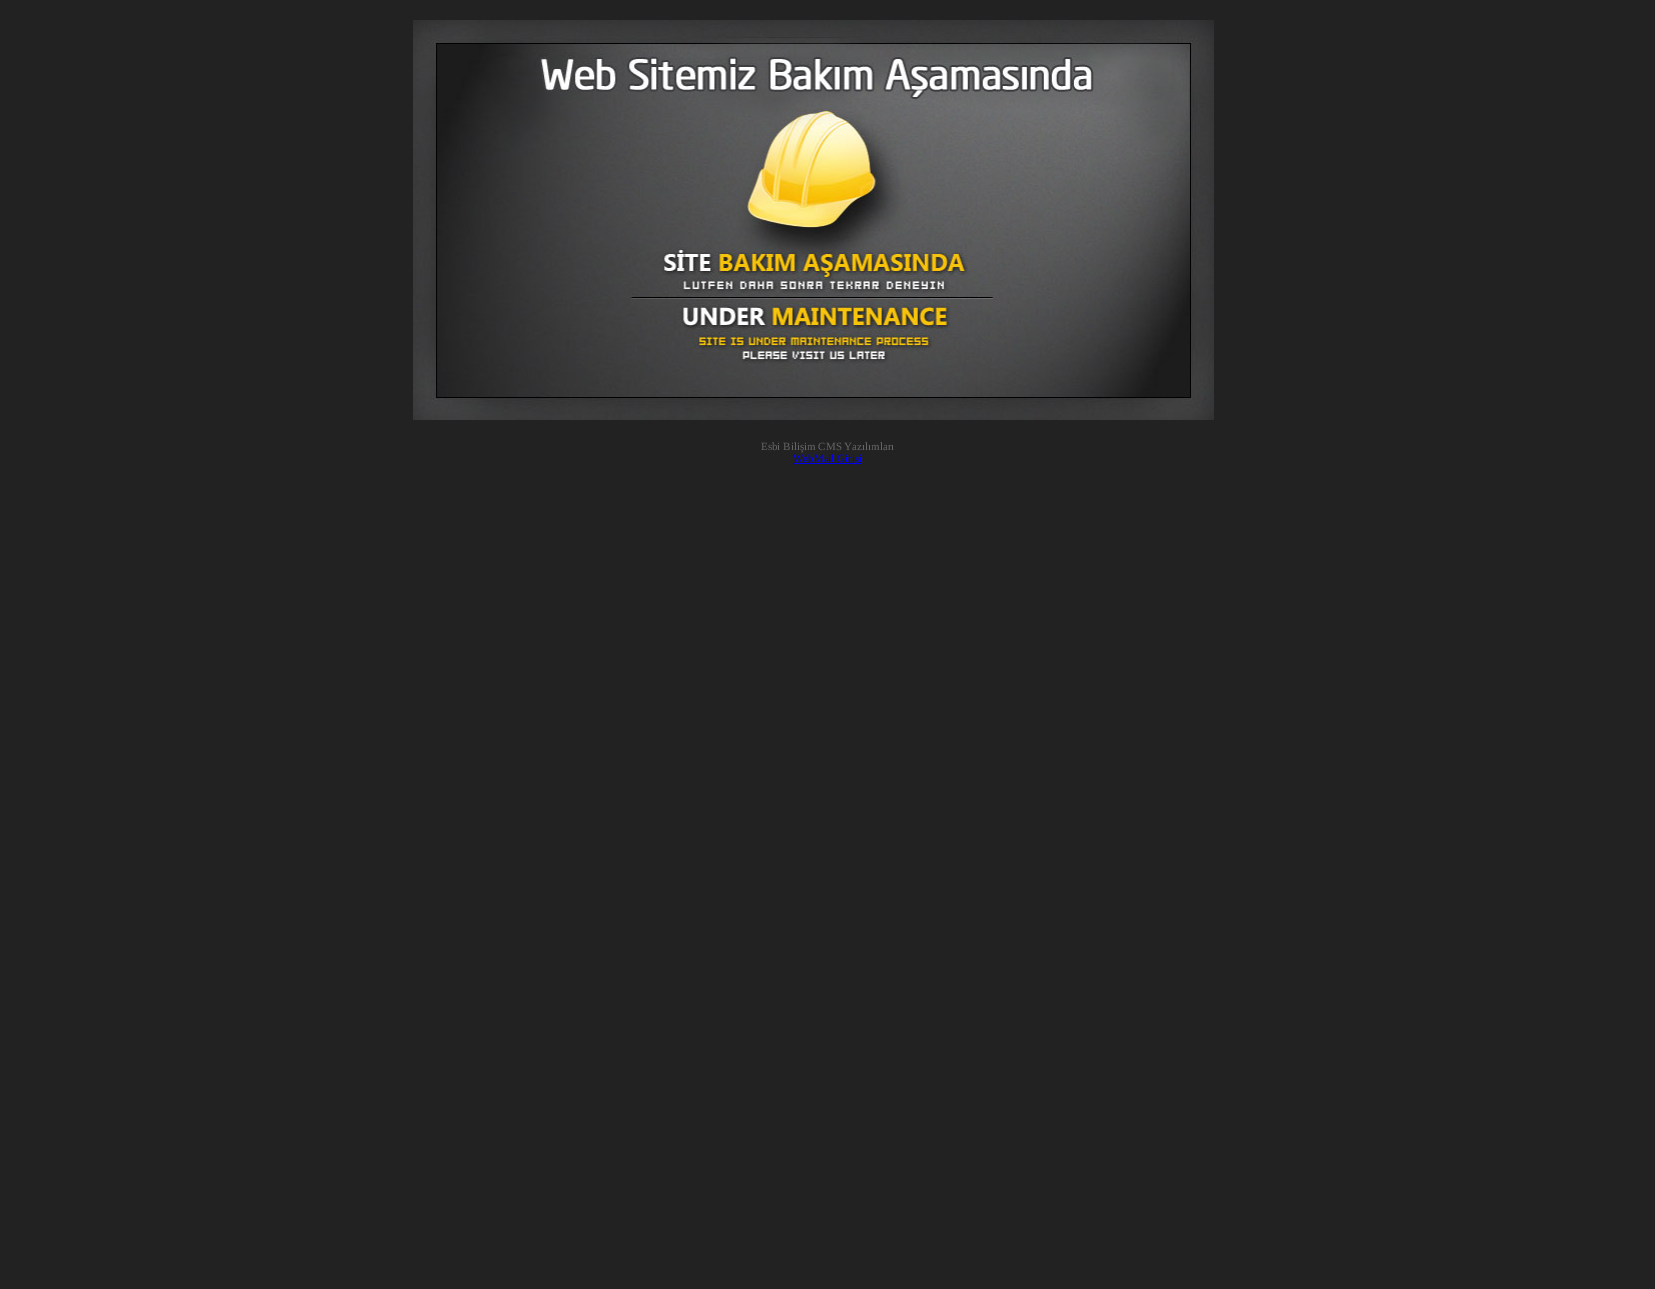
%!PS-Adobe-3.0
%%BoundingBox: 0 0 1655 1289
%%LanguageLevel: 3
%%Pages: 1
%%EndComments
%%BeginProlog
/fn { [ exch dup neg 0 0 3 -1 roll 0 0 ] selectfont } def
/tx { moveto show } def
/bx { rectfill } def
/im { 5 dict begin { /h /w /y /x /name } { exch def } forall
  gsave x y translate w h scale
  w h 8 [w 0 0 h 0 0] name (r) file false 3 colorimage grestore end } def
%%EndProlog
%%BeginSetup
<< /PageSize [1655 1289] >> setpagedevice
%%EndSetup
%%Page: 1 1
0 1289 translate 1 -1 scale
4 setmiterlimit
0.133 setgray
0 0 1655 1289 bx
(image0.raw) 413 20 801 400 im
/LiberationSerif-Regular 11 fn
0.4 setgray
(Esbi Bilişim CMS Yazılımları) 761 450 tx
0 0 0.933 setrgbcolor
793 463 69 1 bx
(WebMail Girişi) 793 462 tx
showpage
%%EOF
